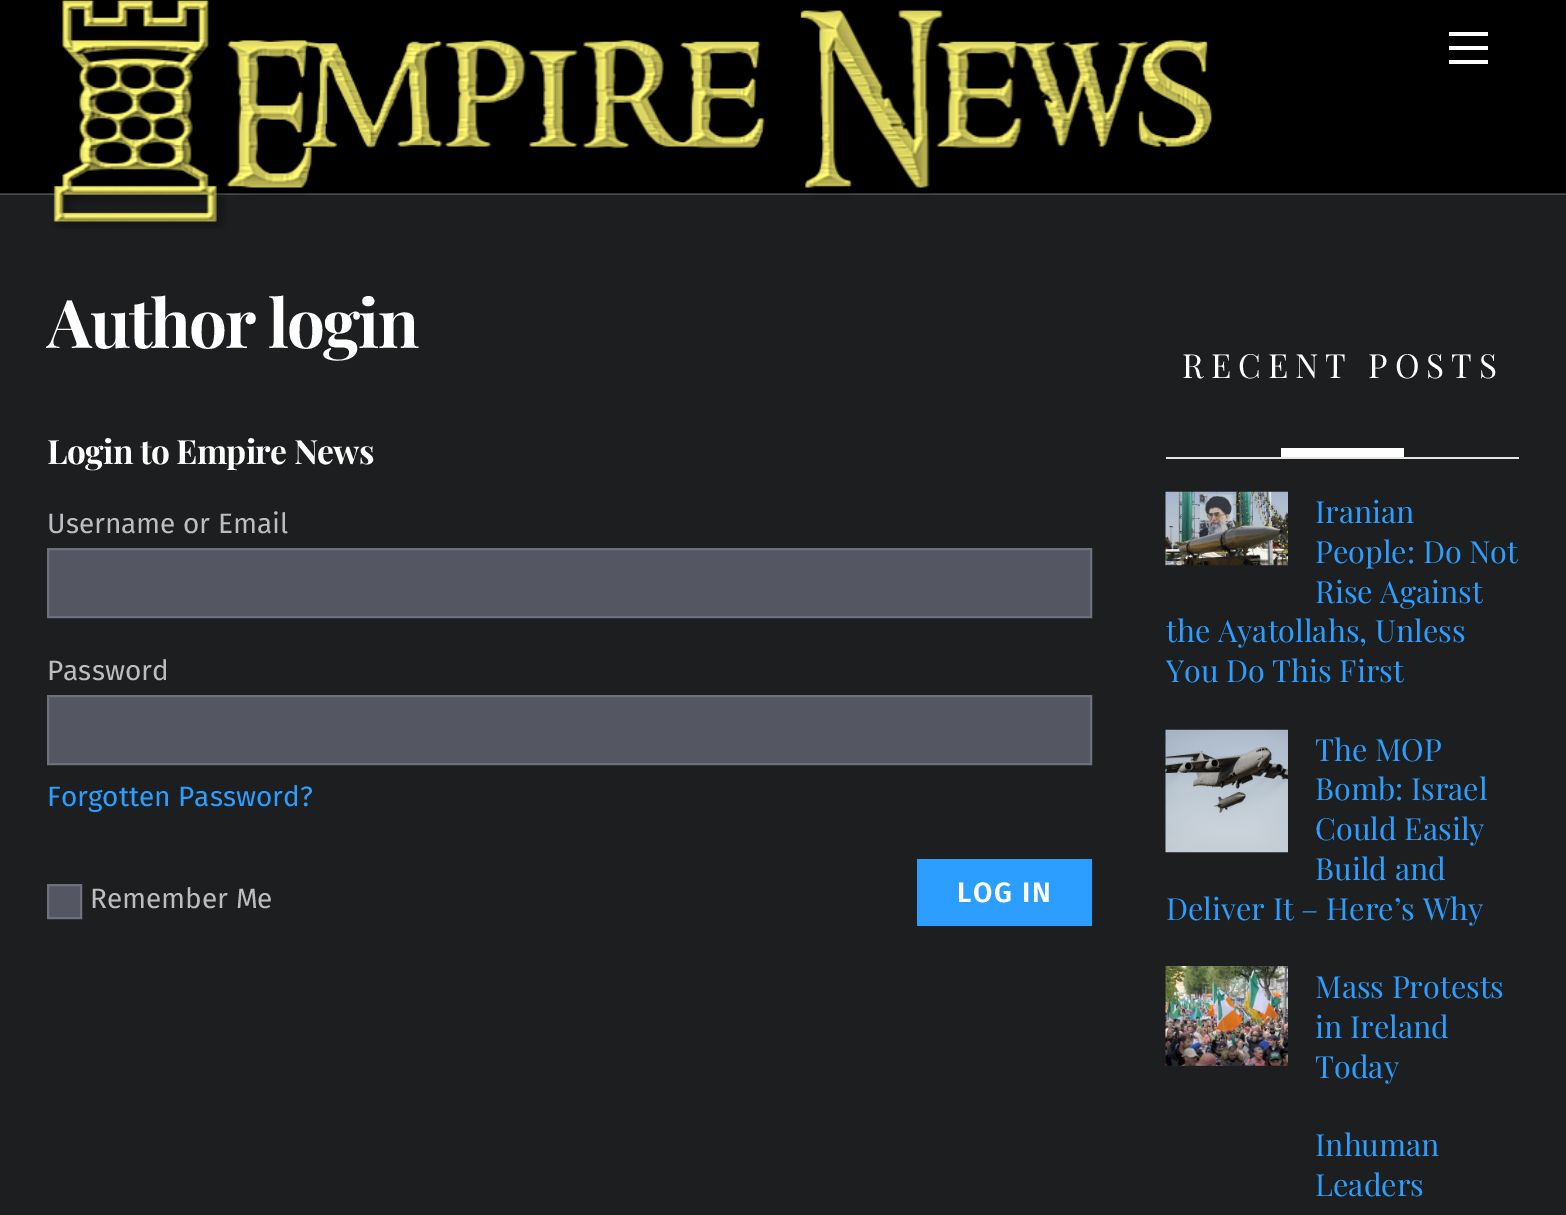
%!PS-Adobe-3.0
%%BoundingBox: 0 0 1566 1215
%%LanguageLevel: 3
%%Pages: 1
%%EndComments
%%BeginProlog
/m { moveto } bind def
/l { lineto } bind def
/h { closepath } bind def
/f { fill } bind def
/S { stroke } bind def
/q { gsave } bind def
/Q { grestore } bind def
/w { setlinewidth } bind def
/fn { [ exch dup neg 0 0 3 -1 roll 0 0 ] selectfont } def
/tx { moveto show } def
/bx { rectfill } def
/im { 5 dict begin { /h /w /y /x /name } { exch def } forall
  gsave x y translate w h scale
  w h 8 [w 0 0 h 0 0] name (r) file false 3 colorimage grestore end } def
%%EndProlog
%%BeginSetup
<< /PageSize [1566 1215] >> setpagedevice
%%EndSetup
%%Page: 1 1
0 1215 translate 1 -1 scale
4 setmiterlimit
0.114 0.118 0.122 setrgbcolor
0 0 1566 1215 bx
0.29 0.294 0.298 setrgbcolor
0 194 1566 1 bx
0 setgray
0 0 1566 193 bx
0.212 setgray
0 193 1566 1 bx
(image0.raw) 52 0 1161 229 im
1 setgray
1449 60 39 4 bx
1449 32 39 4 bx
1449 46 39 4 bx
/PlayfairDisplay-Bold 67.25 fn
47 348 m -2 0 (Author login) ashow
/PlayfairDisplay-Bold 33.5 fn
47 464 m -0.7 0 (Login to Empire News) ashow
/FiraSans-Regular 28 fn
0.737 0.741 0.753 setrgbcolor
(Username or Email) 47 533 tx
0.329 0.341 0.38 setrgbcolor
48 549 m 1091 549 l 1091 617 l 48 617 l h q f Q
0.424 0.443 0.49 setrgbcolor
2 w
S
0.737 0.741 0.753 setrgbcolor
(Password) 47 680 tx
0.329 0.341 0.38 setrgbcolor
48 696 m 1091 696 l 1091 764 l 48 764 l h q f Q
0.424 0.443 0.49 setrgbcolor
S
0.169 0.62 1 setrgbcolor
(Forgotten Password?) 47 806 tx
0.329 0.341 0.38 setrgbcolor
48 885 m 81 885 l 81 918 l 48 918 l h q f Q
0.424 0.443 0.49 setrgbcolor
S
0.737 0.741 0.753 setrgbcolor
(Remember Me) 90 908 tx
0.169 0.62 1 setrgbcolor
917 859 175 67 bx
/FiraSans-SemiBold 28 fn
1 setgray
957 902 m 1.75 0 (LOG IN) ashow
0.898 setgray
1166 457 353 2 bx
/PlayfairDisplay-Regular 33.25 fn
1 setgray
1182 378 m 7 0 (RECENT POSTS) ashow
1281 448 123 9 bx
(image1.raw) 1165 491 123 75 im
/PlayfairDisplay-Regular 30.5 fn
0.169 0.62 1 setrgbcolor
(Iranian) 1315 523 tx
(People: Do Not) 1315 563 tx
(Rise Against) 1315 603 tx
(the Ayatollahs, Unless) 1166 642 tx
(You Do This First) 1166 682 tx
(image2.raw) 1165 729 123 124 im
(The MOP) 1315 761 tx
(Bomb: Israel) 1315 800 tx
(Could Easily) 1315 840 tx
(Build and) 1315 880 tx
(Deliver It – Here’s Why) 1166 920 tx
(image3.raw) 1165 966 123 100 im
(Mass Protests) 1315 998 tx
(in Ireland) 1315 1038 tx
(Today) 1315 1078 tx
(Inhuman) 1315 1156 tx
(Leaders) 1315 1196 tx
showpage
%%EOF
